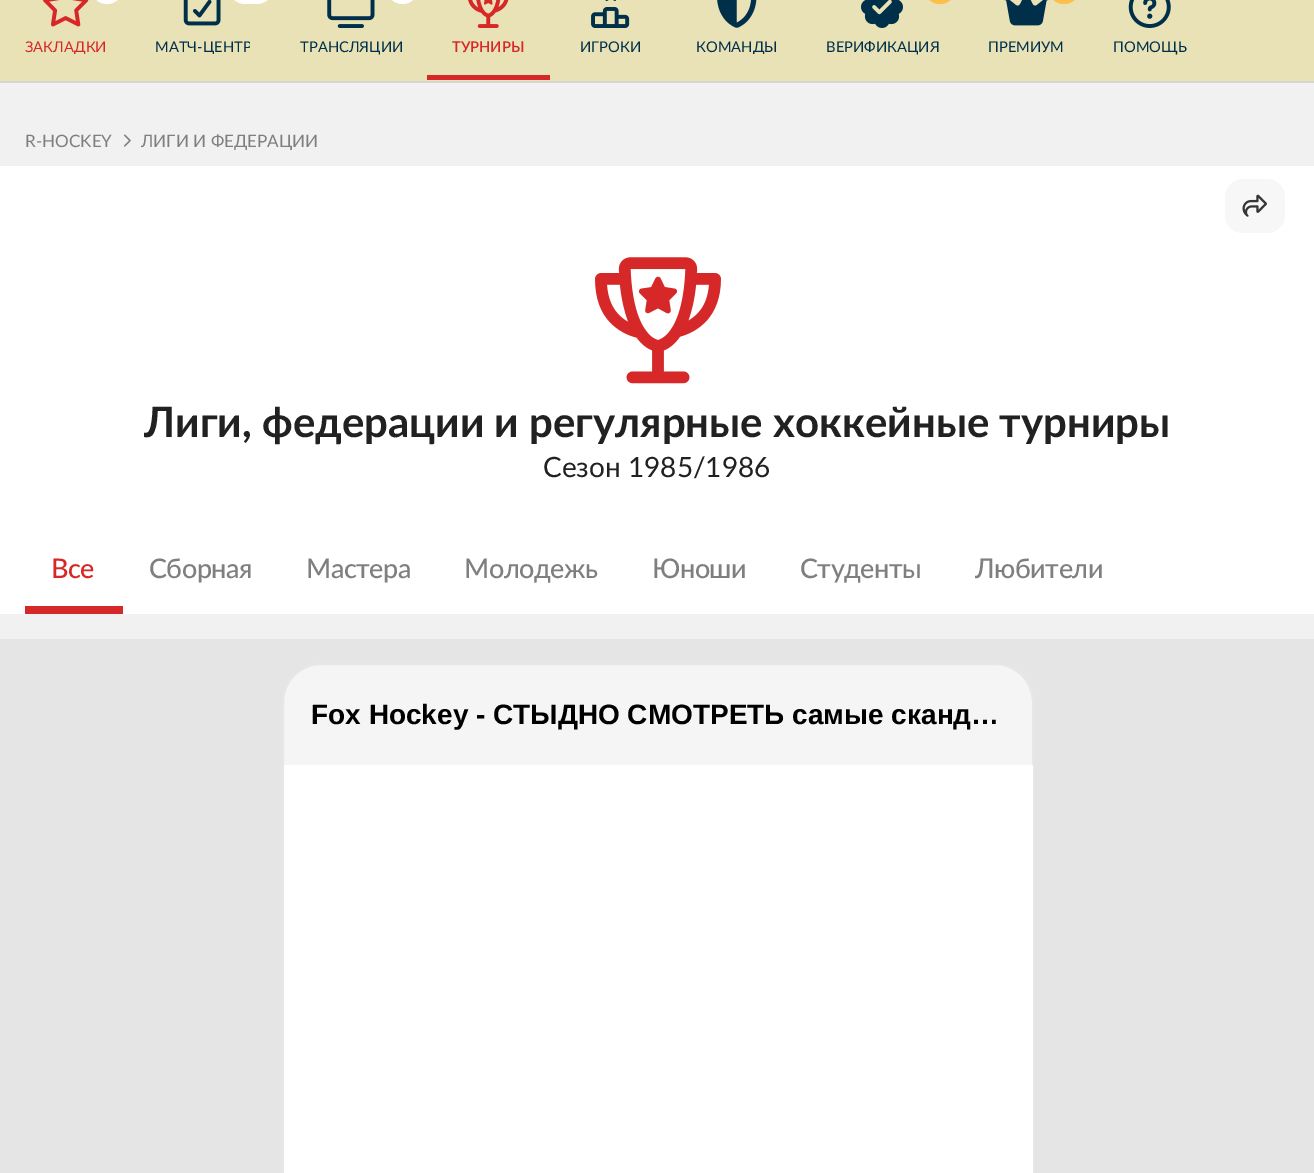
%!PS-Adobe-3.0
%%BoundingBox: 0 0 1314 1173
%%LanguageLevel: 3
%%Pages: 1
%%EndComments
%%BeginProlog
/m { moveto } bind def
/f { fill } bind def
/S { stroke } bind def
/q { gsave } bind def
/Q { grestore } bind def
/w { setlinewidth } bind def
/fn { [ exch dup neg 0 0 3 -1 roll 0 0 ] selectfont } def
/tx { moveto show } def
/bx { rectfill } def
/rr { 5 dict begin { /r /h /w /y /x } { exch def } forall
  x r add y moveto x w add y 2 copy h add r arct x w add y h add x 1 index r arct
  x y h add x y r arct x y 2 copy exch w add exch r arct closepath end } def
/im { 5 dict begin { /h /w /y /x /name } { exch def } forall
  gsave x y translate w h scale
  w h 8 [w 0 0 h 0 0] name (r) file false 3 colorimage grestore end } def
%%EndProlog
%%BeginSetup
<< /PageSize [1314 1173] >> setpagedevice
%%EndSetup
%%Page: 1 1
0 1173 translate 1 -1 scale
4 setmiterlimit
0.945 setgray
0 0 1314 1173 bx
0.918 0.886 0.718 setrgbcolor
0 0 1314 81 bx
0.839 setgray
0 81 1314 2 bx
1 setgray
91 -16 32 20 16 rr f
(image0.raw) 43 0 46 27 im
q
25 40 80 14 rectclip
/Lato-Regular 14.75 fn
0.839 0.157 0.157 setrgbcolor
(ЗАКЛАДКИ) 25 52 tx
Q
229 -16 44 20 16 rr f
(image1.raw) 183 0 38 26 im
q
154 40 96 14 rectclip
/Lato-Regular 14.75 fn
0 0.188 0.286 setrgbcolor
(МАТЧ-ЦЕНТР) 155 52 tx
Q
387 -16 31 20 15.5 rr f
(image2.raw) 327 0 48 28 im
/Lato-Regular 14.75 fn
0 0.188 0.286 setrgbcolor
(ТРАНСЛЯЦИИ) 300 52 tx
0.839 0.157 0.157 setrgbcolor
427 75 123 5 bx
(image3.raw) 468 0 41 28 im
/Lato-SemiBold 14.75 fn
(ТУРНИРЫ) 452 52 tx
(image4.raw) 591 0 39 28 im
/Lato-Regular 14.75 fn
0 0.188 0.286 setrgbcolor
(ИГРОКИ) 580 52 tx
(image5.raw) 717 0 40 28 im
q
697 40 80 14 rectclip
(КОМАНДЫ) 696 52 tx
Q
0.988 0.749 0.286 setrgbcolor
924 -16 32 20 16 rr f
(image6.raw) 861 0 42 28 im
0 0.188 0.286 setrgbcolor
(ВЕРИФИКАЦИЯ) 826 52 tx
(image7.raw) 1004 0 45 26 im
0.988 0.749 0.286 setrgbcolor
1048 -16 32 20 16 rr f
0 0.188 0.286 setrgbcolor
(ПРЕМИУМ) 988 52 tx
(image8.raw) 1128 0 43 28 im
(ПОМОЩЬ) 1113 52 tx
/Lato-Regular 17.1 fn
0.498 0.498 0.502 setrgbcolor
(R-HOCKEY) 25 147 tx
(image9.raw) 123 134 8 13 im
(ЛИГИ И ФЕДЕРАЦИИ) 141 147 tx
1 setgray
0 166 1314 448 bx
0.969 0.969 0.973 setrgbcolor
1225 179 60 54 18 rr f
(image10.raw) 1242 194 25 23 im
(image11.raw) 595 257 126 127 im
/Lato-Bold 42 fn
0.129 setgray
(Лиги, федерации и регулярные хоккейные турниры) 144 437 tx
/Lato-Regular 28 fn
(Сезон 1985/1986) 543 477 tx
0.839 0.157 0.157 setrgbcolor
25 606 98 8 bx
/Lato-Medium 27 fn
51 578 m -0.5 0 (Все) ashow
0.498 0.498 0.502 setrgbcolor
149 578 m -0.5 0 (Сборная) ashow
306 578 m -0.5 0 (Мастера) ashow
464 578 m -0.5 0 (Молодежь) ashow
652 578 m -0.5 0 (Юноши) ashow
800 578 m -0.5 0 (Студенты) ashow
975 578 m -0.5 0 (Любители) ashow
0.898 setgray
0 639 1314 534 bx
0.961 setgray
283 664 750 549 38 rr q f Q
0.906 setgray
2 w
S
/LiberationSans-Bold 28 fn
0 setgray
(Fox Hockey - СТЫДНО СМОТРЕТЬ самые сканд…) 311 724 tx
1 setgray
284 765 749 408 bx
showpage
%%EOF
